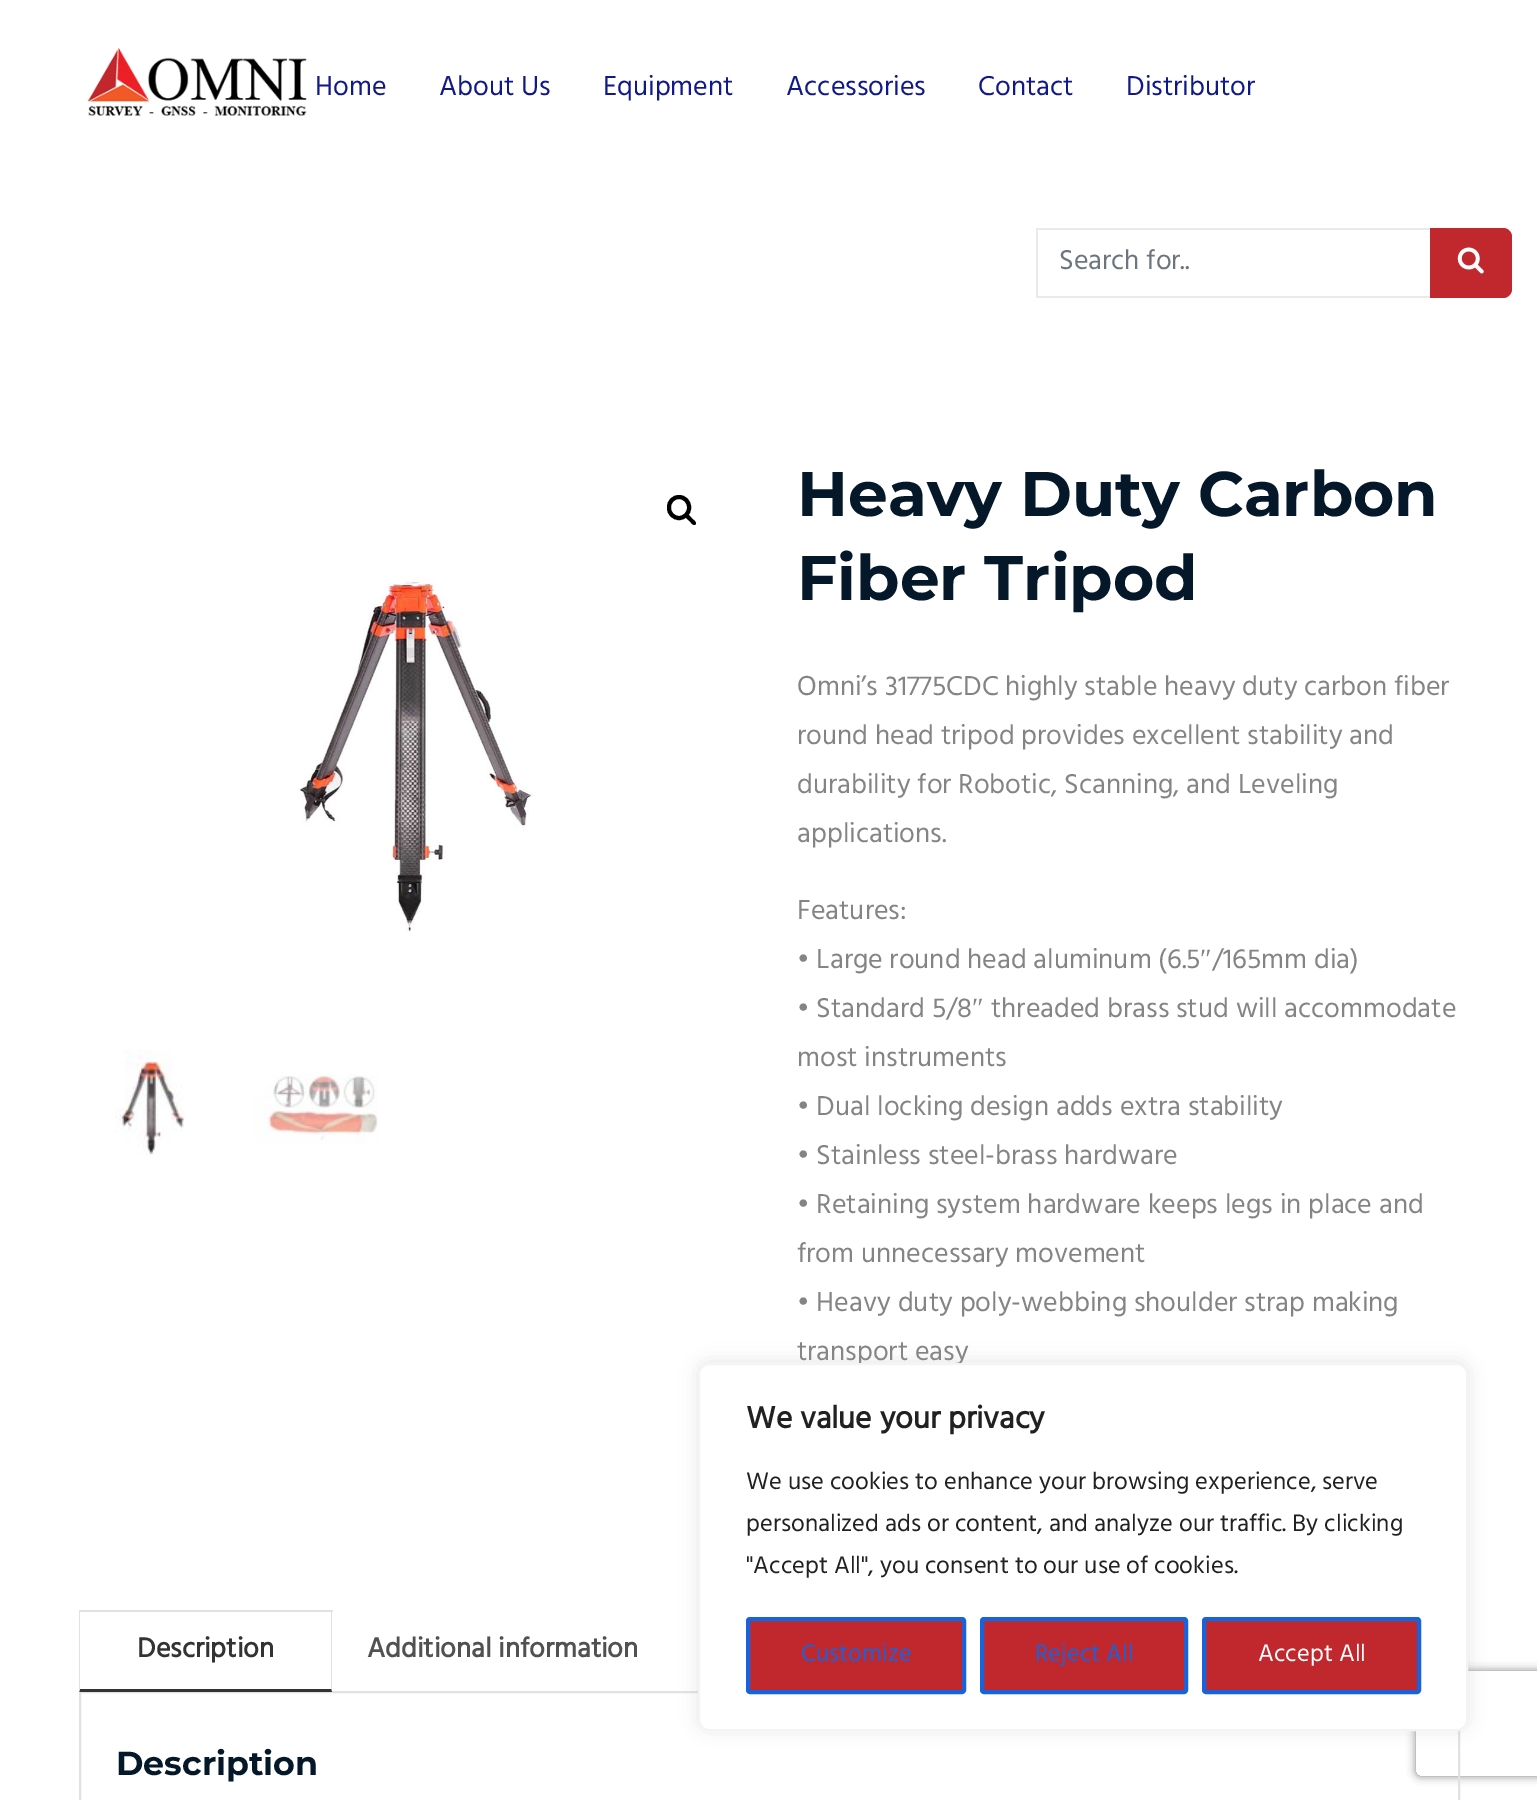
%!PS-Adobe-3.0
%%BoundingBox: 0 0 1537 1800
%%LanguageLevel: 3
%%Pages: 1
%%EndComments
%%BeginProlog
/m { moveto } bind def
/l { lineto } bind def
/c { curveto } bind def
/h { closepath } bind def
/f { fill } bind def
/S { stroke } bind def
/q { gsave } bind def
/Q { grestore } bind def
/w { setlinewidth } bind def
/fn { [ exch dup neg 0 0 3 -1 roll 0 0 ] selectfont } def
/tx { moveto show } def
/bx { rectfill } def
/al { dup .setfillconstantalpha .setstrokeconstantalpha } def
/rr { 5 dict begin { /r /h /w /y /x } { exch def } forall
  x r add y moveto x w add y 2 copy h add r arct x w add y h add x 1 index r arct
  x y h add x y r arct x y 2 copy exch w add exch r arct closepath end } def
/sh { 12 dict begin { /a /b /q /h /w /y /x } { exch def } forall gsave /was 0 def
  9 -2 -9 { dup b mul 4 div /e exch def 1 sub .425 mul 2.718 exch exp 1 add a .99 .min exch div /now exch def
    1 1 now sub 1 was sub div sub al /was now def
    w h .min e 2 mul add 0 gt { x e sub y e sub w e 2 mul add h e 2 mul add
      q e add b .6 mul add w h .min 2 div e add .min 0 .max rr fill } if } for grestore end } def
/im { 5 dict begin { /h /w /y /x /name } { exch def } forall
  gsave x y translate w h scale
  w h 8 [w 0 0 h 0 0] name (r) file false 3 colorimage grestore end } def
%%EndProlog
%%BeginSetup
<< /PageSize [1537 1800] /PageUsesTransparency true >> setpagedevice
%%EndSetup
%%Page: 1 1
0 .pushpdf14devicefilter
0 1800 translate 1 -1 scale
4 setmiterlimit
1 setgray
0 0 1537 1800 bx
(image0.raw) 87 48 220 68 im
/Hind-Regular 28 fn
0.067 0.098 0.537 setrgbcolor
(Home) 315 95 tx
(About Us) 439 95 tx
(Equipment) 603 95 tx
(Accessories) 786 95 tx
(Contact) 978 95 tx
(Distributor) 1126 95 tx
0.918 setgray
1036 228 394 2 bx
1036 296 394 2 bx
1036 228 2 70 bx
0.424 0.459 0.49 setrgbcolor
(Search for..) 1059 269 tx
0.757 0.157 0.176 setrgbcolor
1430 228 m 1503 228 l 1508 228 1512 232 1512 237 c 1512 289 l 1512 294 1508 298 1503 298 c 1430 298 l h f
(image1.raw) 1457 247 27 27 im
0 setgray
4 w
669 497 20 21 10 rr S
686 515 m 688 513 691 517.5 692 518.5 c 693 519.5 697.5 522.5 695.5 524.5 c 693.5 526.5 690.5 522 689.5 521 c 688.5 520 684 517 686 515 c h f
(image2.raw) 297 575 237 358 im
(image3.raw) 115 1050 70 105 im
(image4.raw) 252 1073 127 71 im
/Montserrat-Thin 63 fn
0.02 0.094 0.161 setrgbcolor
(Heavy Duty Carbon) 797 516 tx
(Fiber Tripod) 797 600 tx
/Hind-Regular 28 fn
0.518 setgray
(Omni’s 31775CDC highly stable heavy duty carbon fiber) 797 695 tx
(round head tripod provides excellent stability and) 797 744 tx
(durability for Robotic, Scanning, and Leveling) 797 793 tx
(applications.) 797 842 tx
(Features:) 797 919 tx
(• Large round head aluminum \(6.5) 797 968 tx
/LiberationSerif-Regular 28 fn
(″) 1200 968 tx
/Hind-Regular 28 fn
(/165mm dia\)) 1212 968 tx
(• Standard 5/8) 797 1017 tx
/LiberationSerif-Regular 28 fn
(″) 972 1017 tx
/Hind-Regular 28 fn
(threaded brass stud will accommodate) 991 1017 tx
(most instruments) 797 1066 tx
(• Dual locking design adds extra stability) 797 1115 tx
(• Stainless steel-brass hardware) 797 1164 tx
(• Retaining system hardware keeps legs in place and) 797 1213 tx
(from unnecessary movement) 797 1262 tx
(• Heavy duty poly-webbing shoulder strap making) 797 1311 tx
(transport easy) 797 1360 tx
0.882 setgray
79 1610 254 2 bx
q
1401 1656 m 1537 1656 l 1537 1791 l 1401 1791 l h 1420 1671 m 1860 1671 l 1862 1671 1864 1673 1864 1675 c 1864 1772 l 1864 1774 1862 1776 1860 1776 c 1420 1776 l 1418 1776 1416 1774 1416 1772 c 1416 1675 l 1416 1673 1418 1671 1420 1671 c h eoclip newpath
0.502 setgray
1416 1671 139 105 4 4.5 1 sh
Q
2 w
80 1692 1379 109 rectstroke
332 1610 m 332 1692 l 331 1689 l 331 1612 l h f
0.2 setgray
332 1692 m 79 1692 l 80 1689 l 331 1689 l h f
0.882 setgray
79 1692 m 79 1610 l 80 1612 l 80 1689 l h f
/Hind-Bold 28 fn
0.2 setgray
(Description) 137 1657 tx
0.318 setgray
(Additional information) 367 1657 tx
/Montserrat-Thin 33.25 fn
0.02 0.094 0.161 setrgbcolor
(Description) 116 1775 tx
0.675 0.671 0.671 setrgbcolor
698 1362 770 367 11 9 0.3 sh
1 setgray
699 1364 768 366 10 rr q f Q
0.957 setgray
S
/Hind-Bold 31.5 fn
0.129 setgray
(We value your privacy) 746 1428 tx
/Hind-Regular 24.5 fn
(We use cookies to enhance your browsing experience, serve) 746 1489 tx
(personalized ads or content, and analyze our traffic. By clicking) 746 1531 tx
("Accept All", you consent to our use of cookies.) 746 1573 tx
0.757 0.157 0.176 setrgbcolor
748 1619 216 73 2 rr q f Q
0.094 0.388 0.863 setrgbcolor
4 w
S
(Customize) 801 1661 tx
0.757 0.157 0.176 setrgbcolor
982 1619 204 73 2 rr q f Q
0.094 0.388 0.863 setrgbcolor
S
(Reject All) 1035 1661 tx
0.757 0.157 0.176 setrgbcolor
1204 1619 215 73 2 rr q f Q
0.094 0.388 0.863 setrgbcolor
S
1 setgray
(Accept All) 1258 1661 tx
.poppdf14devicefilter showpage
%%EOF
